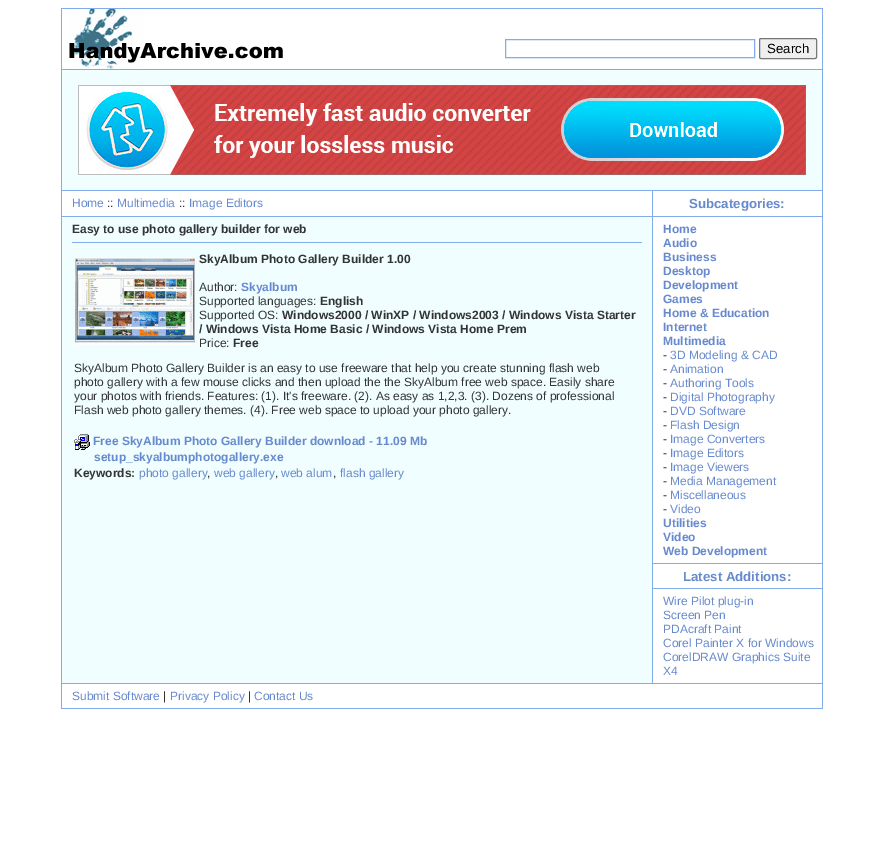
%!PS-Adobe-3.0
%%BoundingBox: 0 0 884 855
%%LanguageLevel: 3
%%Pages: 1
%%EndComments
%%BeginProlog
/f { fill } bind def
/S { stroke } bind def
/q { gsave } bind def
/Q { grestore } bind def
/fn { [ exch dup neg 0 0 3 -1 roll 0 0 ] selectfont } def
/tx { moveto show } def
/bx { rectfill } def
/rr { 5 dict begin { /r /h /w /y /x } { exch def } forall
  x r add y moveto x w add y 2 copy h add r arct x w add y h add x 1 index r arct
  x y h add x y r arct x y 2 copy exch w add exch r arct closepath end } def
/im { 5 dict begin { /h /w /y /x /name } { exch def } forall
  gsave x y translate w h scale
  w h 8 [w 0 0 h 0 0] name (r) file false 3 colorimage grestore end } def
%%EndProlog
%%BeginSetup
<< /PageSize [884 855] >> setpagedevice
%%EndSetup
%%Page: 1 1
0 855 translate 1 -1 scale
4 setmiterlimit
1 setgray
0 0 884 855 bx
0.506 0.675 0.922 setrgbcolor
61 8 762 701 bx
1 setgray
62 9 760 60 bx
(image0.raw) 69 9 214 60 im
0.506 0.675 0.922 setrgbcolor
505.5 39.5 249 18 rectstroke
0.937 setgray
759.5 38.5 57 20 1.5 rr q f Q
0.463 setgray
S
/LiberationSans-Regular 13.25 fn
0 setgray
(Search) 767 53 tx
0.941 0.996 1 setrgbcolor
62 70 760 120 bx
(image1.raw) 78 85 728 90 im
62 217 590 466 bx
1 setgray
62 191 590 25 bx
/LiberationSans-Regular 12 fn
0.404 0.541 0.808 setrgbcolor
(Home) 72 207 tx
0.2 setgray
(::) 107 207 tx
0.404 0.541 0.808 setrgbcolor
(Multimedia) 117 207 tx
0.2 setgray
(::) 179 207 tx
0.404 0.541 0.808 setrgbcolor
(Image Editors) 189 207 tx
/LiberationSans-Bold 12 fn
0.2 setgray
(Easy to use photo gallery builder for web) 72 233 tx
0.506 0.675 0.922 setrgbcolor
72 242 570 1 bx
(image2.raw) 75 257 120 88 im
0.2 setgray
(SkyAlbum Photo Gallery Builder 1.00) 199 263 tx
/LiberationSans-Regular 12 fn
(Author:) 199 291 tx
/LiberationSans-Bold 12 fn
0.404 0.541 0.808 setrgbcolor
(Skyalbum) 241 291 tx
/LiberationSans-Regular 12 fn
0.2 setgray
(Supported languages:) 199 305 tx
/LiberationSans-Bold 12 fn
(English) 320 305 tx
/LiberationSans-Regular 12 fn
(Supported OS:) 199 319 tx
/LiberationSans-Bold 12 fn
(Windows2000 / WinXP / Windows2003 / Windows Vista Starter) 282 319 tx
(/ Windows Vista Home Basic / Windows Vista Home Prem) 199 333 tx
/LiberationSans-Regular 12 fn
(Price:) 199 347 tx
/LiberationSans-Bold 12 fn
(Free) 233 347 tx
/LiberationSans-Regular 12 fn
(SkyAlbum Photo Gallery Builder is an easy to use freeware that help you create stunning flash web) 74 372 tx
(photo gallery with a few mouse clicks and then upload the the SkyAlbum free web space. Easily share) 74 386 tx
(your photos with friends. Features: \(1\). It's freeware. \(2\). As easy as 1,2,3. \(3\). Dozens of professional) 74 400 tx
(Flash web photo gallery themes. \(4\). Free web space to upload your photo gallery.) 74 414 tx
(image3.raw) 74 434 16 16 im
/LiberationSans-Bold 12 fn
0.404 0.541 0.808 setrgbcolor
(Free SkyAlbum Photo Gallery Builder download - 11.09 Mb) 93 445 tx
(setup_skyalbumphotogallery.exe) 94 461 tx
0.2 setgray
(Keywords:) 74 477 tx
/LiberationSans-Regular 12 fn
0.404 0.541 0.808 setrgbcolor
(photo gallery) 139 477 tx
0.2 setgray
(,) 207 477 tx
0.404 0.541 0.808 setrgbcolor
(web gallery) 214 477 tx
0.2 setgray
(,) 275 477 tx
0.404 0.541 0.808 setrgbcolor
(web alum) 281 477 tx
0.2 setgray
(,) 333 477 tx
0.404 0.541 0.808 setrgbcolor
(flash gallery) 340 477 tx
1 setgray
653 191 169 492 bx
/LiberationSans-Bold 13.25 fn
0.404 0.541 0.808 setrgbcolor
(Subcategories:) 689 208 tx
0.506 0.675 0.922 setrgbcolor
653 216 169 1 bx
/LiberationSans-Bold 12 fn
0.404 0.541 0.808 setrgbcolor
(Home) 663 233 tx
(Audio) 663 247 tx
(Business) 663 261 tx
(Desktop) 663 275 tx
(Development) 663 289 tx
(Games) 663 303 tx
(Home & Education) 663 317 tx
(Internet) 663 331 tx
(Multimedia) 663 345 tx
/LiberationSans-Regular 12 fn
0.2 setgray
(-) 663 359 tx
0.404 0.541 0.808 setrgbcolor
(3D Modeling & CAD) 670 359 tx
0.2 setgray
(-) 663 373 tx
0.404 0.541 0.808 setrgbcolor
(Animation) 670 373 tx
0.2 setgray
(-) 663 387 tx
0.404 0.541 0.808 setrgbcolor
(Authoring Tools) 670 387 tx
0.2 setgray
(-) 663 401 tx
0.404 0.541 0.808 setrgbcolor
(Digital Photography) 670 401 tx
0.2 setgray
(-) 663 415 tx
0.404 0.541 0.808 setrgbcolor
(DVD Software) 670 415 tx
0.2 setgray
(-) 663 429 tx
0.404 0.541 0.808 setrgbcolor
(Flash Design) 670 429 tx
0.2 setgray
(-) 663 443 tx
0.404 0.541 0.808 setrgbcolor
(Image Converters) 670 443 tx
0.2 setgray
(-) 663 457 tx
0.404 0.541 0.808 setrgbcolor
(Image Editors) 670 457 tx
0.2 setgray
(-) 663 471 tx
0.404 0.541 0.808 setrgbcolor
(Image Viewers) 670 471 tx
0.2 setgray
(-) 663 485 tx
0.404 0.541 0.808 setrgbcolor
(Media Management) 670 485 tx
0.2 setgray
(-) 663 499 tx
0.404 0.541 0.808 setrgbcolor
(Miscellaneous) 670 499 tx
0.2 setgray
(-) 663 513 tx
0.404 0.541 0.808 setrgbcolor
(Video) 670 513 tx
/LiberationSans-Bold 12 fn
(Utilities) 663 527 tx
(Video) 663 541 tx
(Web Development) 663 555 tx
0.506 0.675 0.922 setrgbcolor
653 563 169 1 bx
/LiberationSans-Bold 13.25 fn
0.404 0.541 0.808 setrgbcolor
(Latest Additions:) 683 581 tx
0.506 0.675 0.922 setrgbcolor
653 588 169 1 bx
/LiberationSans-Regular 12 fn
0.404 0.541 0.808 setrgbcolor
(Wire Pilot plug-in) 663 605 tx
(Screen Pen) 663 619 tx
(PDAcraft Paint) 663 633 tx
(Corel Painter X for Windows) 663 647 tx
(CorelDRAW Graphics Suite) 663 661 tx
(X4) 663 675 tx
1 setgray
62 684 760 24 bx
0.404 0.541 0.808 setrgbcolor
(Submit Software) 72 700 tx
0.2 setgray
(|) 163 700 tx
0.404 0.541 0.808 setrgbcolor
(Privacy Policy) 170 700 tx
0.2 setgray
(|) 248 700 tx
0.404 0.541 0.808 setrgbcolor
(Contact Us) 254 700 tx
showpage
%%EOF
